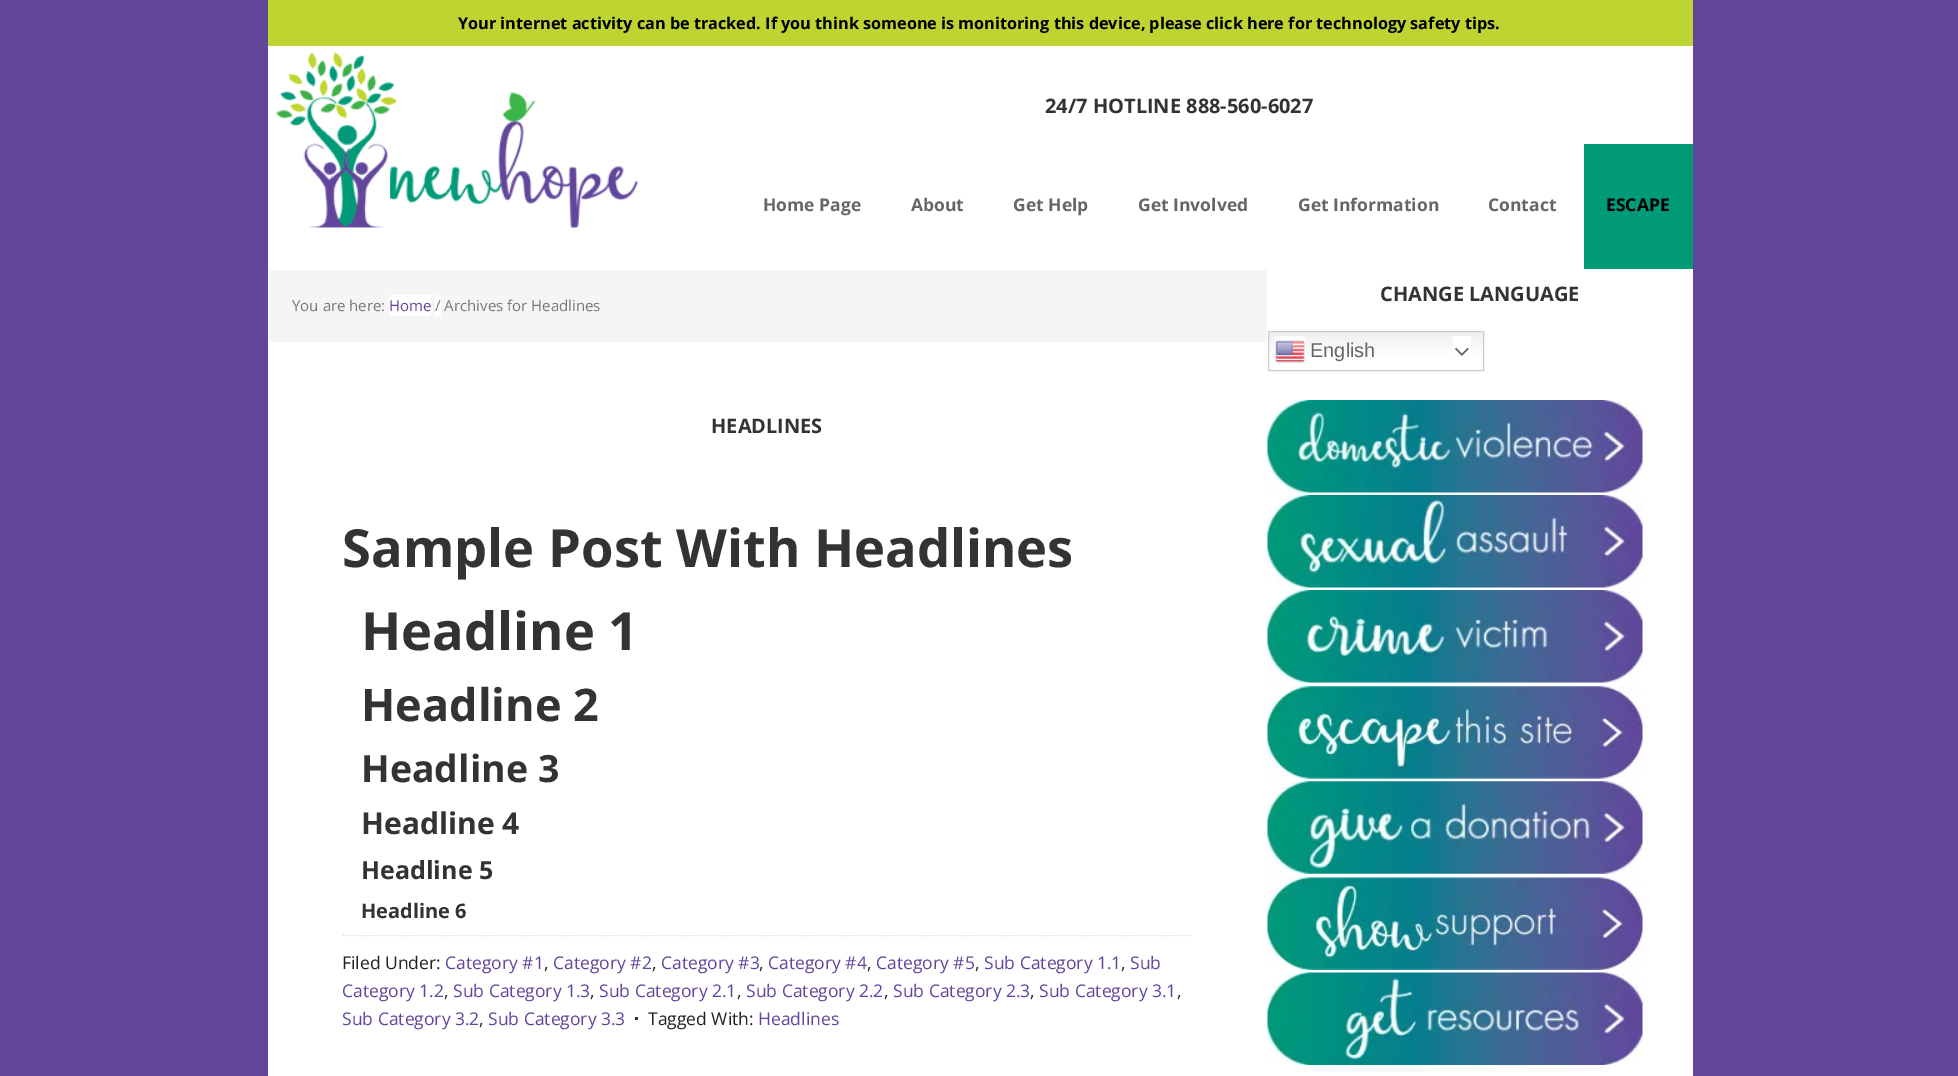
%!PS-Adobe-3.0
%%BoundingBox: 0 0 1958 1076
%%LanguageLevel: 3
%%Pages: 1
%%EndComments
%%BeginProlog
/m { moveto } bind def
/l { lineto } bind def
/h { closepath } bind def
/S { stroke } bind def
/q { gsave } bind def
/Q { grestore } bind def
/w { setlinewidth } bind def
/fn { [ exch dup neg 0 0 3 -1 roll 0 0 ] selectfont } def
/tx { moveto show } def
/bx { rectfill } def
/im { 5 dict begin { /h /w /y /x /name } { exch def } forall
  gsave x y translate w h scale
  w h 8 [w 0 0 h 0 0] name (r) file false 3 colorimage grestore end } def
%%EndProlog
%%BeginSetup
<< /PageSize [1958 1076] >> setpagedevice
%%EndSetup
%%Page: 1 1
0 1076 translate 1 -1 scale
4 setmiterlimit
0.388 0.271 0.608 setrgbcolor
0 0 1958 1076 bx
1 setgray
268 46 1425 1030 bx
0.745 0.831 0.192 setrgbcolor
268 0 1425 46 bx
/OpenSans-Bold 16.25 fn
0 setgray
(Your internet activity can be tracked. If you think someone is monitoring this device, please click here for technology safety tips.) 458 29 tx
(image0.raw) 276 52 362 176 im
/OpenSans-Bold 20 fn
0.2 setgray
(24/7 HOTLINE 888-560-6027) 1045 113 tx
/OpenSans-Bold 17.5 fn
0.4 setgray
(Home Page) 763 211 tx
(About) 911 211 tx
(Get Help) 1013 211 tx
(Get Involved) 1138 211 tx
(Get Information) 1298 211 tx
(Contact) 1488 211 tx
0 0.604 0.471 setrgbcolor
1584 144 109 125 bx
0 setgray
(ESCAPE) 1606 211 tx
0.961 setgray
269 270 998 72 bx
/OpenSans-Regular 15 fn
0.467 setgray
(You are here:) 292 311 tx
1 setgray
389 295 42 21 bx
0.388 0.271 0.608 setrgbcolor
(Home) 389 311 tx
1 setgray
435 295 6 21 bx
0.467 setgray
(/ Archives for Headlines) 435 311 tx
/OpenSans-Bold 20 fn
0.2 setgray
(HEADLINES) 711 433 tx
/OpenSans-Bold 52.5 fn
(Sample Post With Headlines) 342 567 tx
0.867 setgray
1.2 w
[1.25 1.25] 0 setdash
342.5 935.5 m 1192.5 935.5 l S
1 setgray
345 934 846 1 bx
0.2 setgray
(Headline 1) 361 650 tx
/OpenSans-Bold 45 fn
(Headline 2) 361 721 tx
/OpenSans-Bold 37.5 fn
(Headline 3) 361 782 tx
/OpenSans-Bold 30 fn
(Headline 4) 361 834 tx
/OpenSans-Bold 25 fn
(Headline 5) 361 879 tx
/OpenSans-Bold 20 fn
(Headline 6) 361 918 tx
/OpenSans-Regular 17.5 fn
0.133 setgray
(Filed Under:) 342 969 tx
0.388 0.271 0.608 setrgbcolor
(Category #1) 445 969 tx
0.133 setgray
(,) 544 969 tx
0.388 0.271 0.608 setrgbcolor
(Category #2) 553 969 tx
0.133 setgray
(,) 652 969 tx
0.388 0.271 0.608 setrgbcolor
(Category #3) 661 969 tx
0.133 setgray
(,) 759 969 tx
0.388 0.271 0.608 setrgbcolor
(Category #4) 768 969 tx
0.133 setgray
(,) 867 969 tx
0.388 0.271 0.608 setrgbcolor
(Category #5) 876 969 tx
0.133 setgray
(,) 975 969 tx
0.388 0.271 0.608 setrgbcolor
(Sub Category 1.1) 984 969 tx
0.133 setgray
(,) 1121 969 tx
0.388 0.271 0.608 setrgbcolor
(Sub) 1130 969 tx
(Category 1.2) 342 997 tx
0.133 setgray
(,) 444 997 tx
0.388 0.271 0.608 setrgbcolor
(Sub Category 1.3) 453 997 tx
0.133 setgray
(,) 590 997 tx
0.388 0.271 0.608 setrgbcolor
(Sub Category 2.1) 599 997 tx
0.133 setgray
(,) 737 997 tx
0.388 0.271 0.608 setrgbcolor
(Sub Category 2.2) 746 997 tx
0.133 setgray
(,) 884 997 tx
0.388 0.271 0.608 setrgbcolor
(Sub Category 2.3) 893 997 tx
0.133 setgray
(,) 1030 997 tx
0.388 0.271 0.608 setrgbcolor
(Sub Category 3.1) 1039 997 tx
0.133 setgray
(,) 1177 997 tx
0.388 0.271 0.608 setrgbcolor
(Sub Category 3.2) 342 1025 tx
0.133 setgray
(,) 479 1025 tx
0.388 0.271 0.608 setrgbcolor
(Sub Category 3.3) 488 1025 tx
0.133 setgray
(Tagged With:) 648 1025 tx
0.2 setgray
635 1017 3 3 bx
0.388 0.271 0.608 setrgbcolor
(Headlines) 758 1025 tx
/OpenSans-Bold 20 fn
0.2 setgray
(CHANGE LANGUAGE) 1380 301 tx
q 1269 332 m 1483 332 l 1483 355 l 1269 355 l h clip newpath
<< /ShadingType 2 /ColorSpace /DeviceRGB /Coords [1376 331 1376 371] /Extend [true true] /Function << /FunctionType 3 /Domain [0 1] /Functions [<< /FunctionType 2 /Domain [0 1] /C0 [0.937 0.937 0.937] /C1 [1 1 1] /N 1 >> << /FunctionType 2 /Domain [0 1] /C0 [1 1 1] /C1 [1 1 1] /N 1 >>] /Bounds [0.7] /Encode [0 1 0 1] >> >> shfill Q
q 1275 336 m 1305 336 l 1305 355 l 1275 355 l h clip newpath
<< /ShadingType 2 /ColorSpace /DeviceRGB /Coords [1376 331 1376 371] /Extend [true true] /Function << /FunctionType 3 /Domain [0 1] /Functions [<< /FunctionType 2 /Domain [0 1] /C0 [0.988 0.988 0.988] /C1 [1 1 1] /N 1 >> << /FunctionType 2 /Domain [0 1] /C0 [1 1 1] /C1 [1 1 1] /N 1 >>] /Bounds [0.7] /Encode [0 1 0 1] >> >> shfill Q
0.8 setgray
1 w
[] 0 setdash
1268.5 331.5 215 39 rectstroke
(image1.raw) 1275 340 30 24 im
/LiberationSans-Regular 20 fn
0.4 setgray
(English) 1310 357 tx
1 setgray
1453 336 18 19 bx
(image2.raw) 1455 347 14 9 im
(image3.raw) 1267 400 376 93 im
(image4.raw) 1267 495 376 93 im
(image5.raw) 1267 590 376 93 im
(image6.raw) 1267 686 376 93 im
(image7.raw) 1267 781 376 93 im
(image8.raw) 1267 877 376 93 im
(image9.raw) 1267 972 376 93 im
showpage
%%EOF
